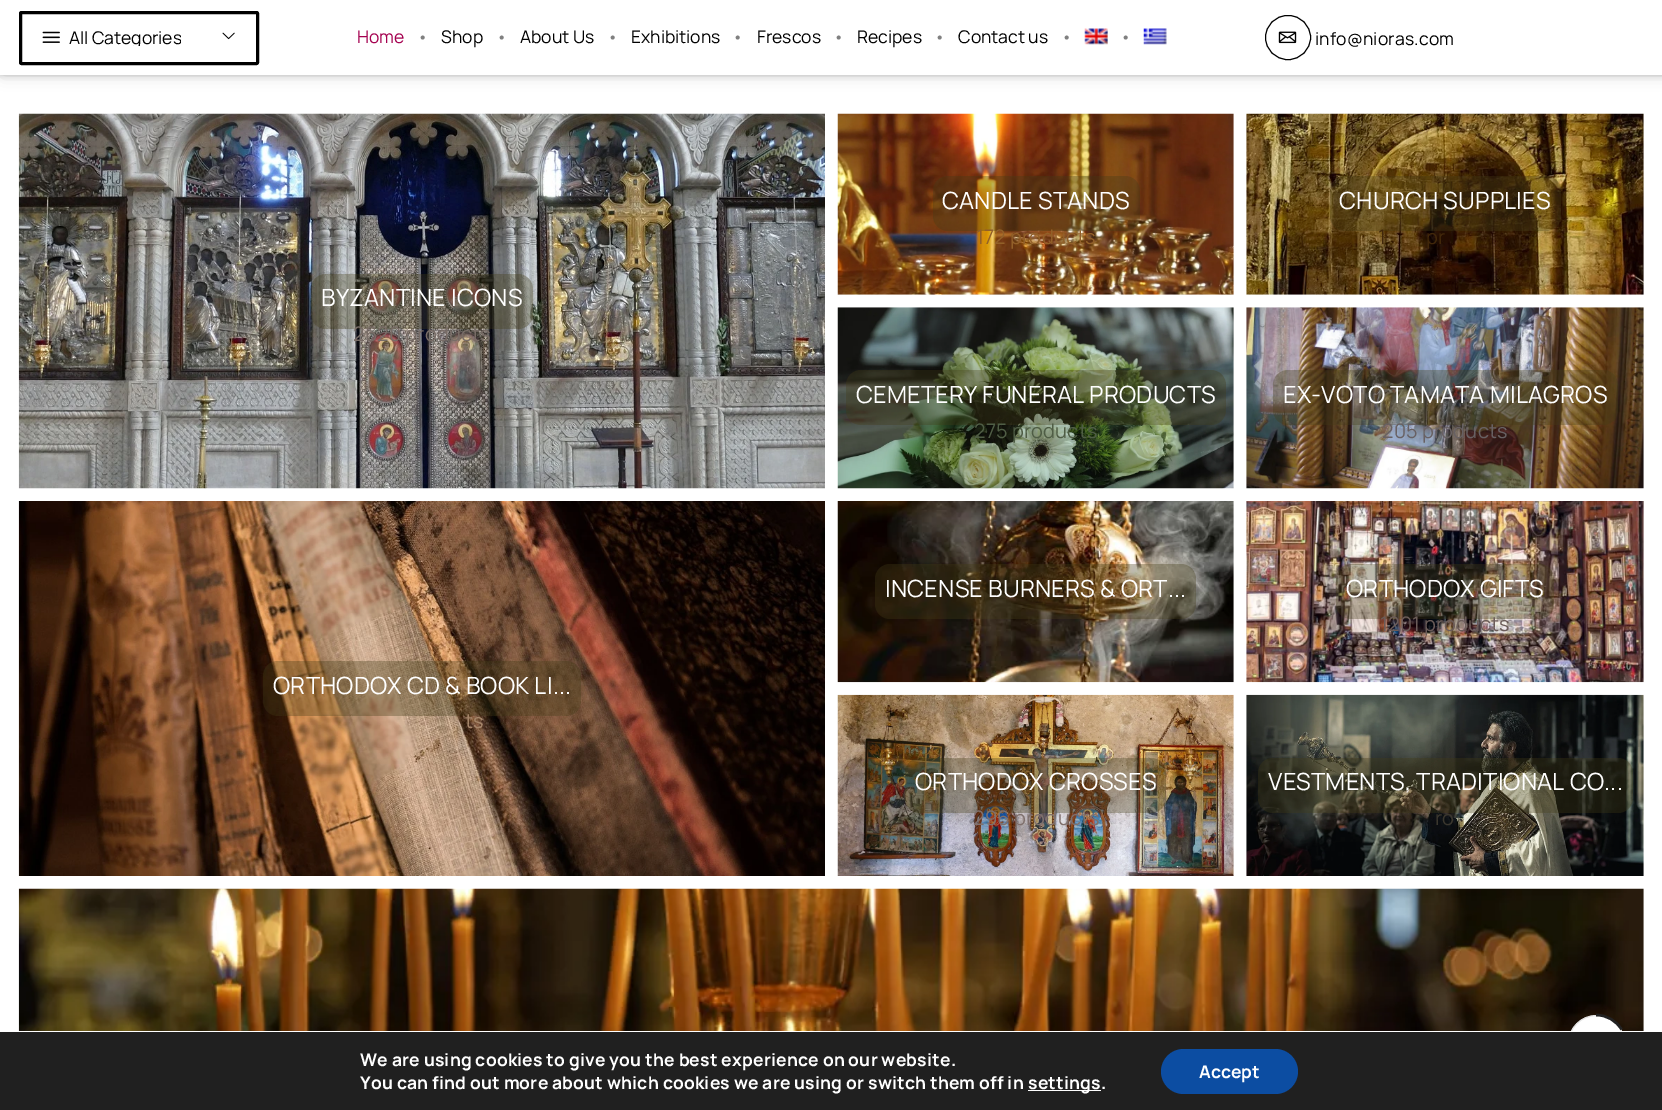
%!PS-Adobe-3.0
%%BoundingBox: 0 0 1662 1110
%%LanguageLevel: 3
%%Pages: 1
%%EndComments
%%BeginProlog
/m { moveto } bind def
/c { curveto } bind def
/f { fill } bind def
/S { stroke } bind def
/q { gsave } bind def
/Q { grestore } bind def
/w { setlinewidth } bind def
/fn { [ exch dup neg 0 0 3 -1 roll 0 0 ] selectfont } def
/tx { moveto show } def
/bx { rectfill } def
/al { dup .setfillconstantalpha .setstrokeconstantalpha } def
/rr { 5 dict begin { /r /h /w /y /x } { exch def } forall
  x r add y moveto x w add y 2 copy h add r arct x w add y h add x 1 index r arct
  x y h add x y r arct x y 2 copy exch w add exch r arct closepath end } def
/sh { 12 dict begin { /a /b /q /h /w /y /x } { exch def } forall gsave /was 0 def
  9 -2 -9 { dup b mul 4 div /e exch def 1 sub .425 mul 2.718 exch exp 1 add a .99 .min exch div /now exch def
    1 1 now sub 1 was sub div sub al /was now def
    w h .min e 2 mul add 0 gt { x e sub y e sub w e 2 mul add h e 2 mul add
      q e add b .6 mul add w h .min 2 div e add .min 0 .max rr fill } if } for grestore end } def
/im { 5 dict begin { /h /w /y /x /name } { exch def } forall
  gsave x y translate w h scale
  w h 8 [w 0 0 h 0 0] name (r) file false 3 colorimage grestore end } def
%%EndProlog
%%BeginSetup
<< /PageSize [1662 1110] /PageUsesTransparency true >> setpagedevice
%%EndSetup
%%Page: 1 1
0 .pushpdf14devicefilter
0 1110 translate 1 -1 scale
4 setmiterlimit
1 setgray
0 0 1662 1110 bx
0 setgray
3 0 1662 75 0 7.5 0.15 sh
0 0 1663 75 0 3 0.2 sh
1 setgray
0 0 1662 75 bx
0 setgray
3 w
20.5 12.5 237 51 1 rr S
(image0.raw) 42 31 18 12 im
q
69 29 112 17 rectclip
/Manrope-Regular 17.5 fn
(All Categories) 69 44 tx
Q
(image1.raw) 222 32 13 8 im
/Manrope-Regular 17.5 fn
0.643 0 0.31 setrgbcolor
(Home) 357 43 tx
0.502 setgray
417 43 m 0.2 0 (•) ashow
0 setgray
(Shop) 441 43 tx
0.502 setgray
496 43 m 0.2 0 (•) ashow
0 setgray
(About Us) 520 43 tx
0.502 setgray
607 43 m 0.2 0 (•) ashow
0 setgray
(Exhibitions) 631 43 tx
0.502 setgray
732 43 m 0.2 0 (•) ashow
0 setgray
(Frescos) 757 43 tx
0.502 setgray
833 43 m 0.2 0 (•) ashow
0 setgray
(Recipes) 857 43 tx
0.502 setgray
934 43 m 0.2 0 (•) ashow
0 setgray
(Contact us) 958 43 tx
0.502 setgray
1061 43 m 0.2 0 (•) ashow
(image2.raw) 1084 28 24 17 im
1120 43 m 0.2 0 (•) ashow
(image3.raw) 1143 28 24 17 im
0 setgray
1 w
1265.5 15.5 45 44 22 rr S
(image4.raw) 1278 31 19 13 im
1315 45 m 0.2 0 (info@nioras.com) ashow
(image5.raw) 837 113 397 182 im
0.34 al
0.259 0.231 0.086 setrgbcolor
933 176 207 55 15 rr f
/Manrope-Regular 23.75 fn
1 al
1 setgray
942 209 m 0.2 0 (CANDLE STANDS) ashow
/Manrope-Regular 20 fn
0.573 0.376 0.161 setrgbcolor
976 244 m 0.2 0 (172 products) ashow
(image6.raw) 1246 113 398 182 im
0.34 al
0.259 0.231 0.086 setrgbcolor
1330 176 231 55 15 rr f
/Manrope-Regular 23.75 fn
1 al
1 setgray
1339 209 m 0.2 0 (CHURCH SUPPLIES) ashow
/Manrope-Regular 20 fn
0.255 0.153 0.039 setrgbcolor
1378 244 m 0.2 0 (1) ashow
1426 244 m 0.2 0 (pr) ashow
(image7.raw) 18 113 807 376 im
0.34 al
0.259 0.231 0.086 setrgbcolor
311 274 222 55 15 rr f
/Manrope-Regular 23.75 fn
1 al
1 setgray
321 306 m 0.2 0 (BYZANTINE ICONS) ashow
/Manrope-Regular 20 fn
0.471 0.424 0.4 setrgbcolor
353 341 m 0.2 0 (2620 products) ashow
(image8.raw) 837 307 397 182 im
0.34 al
0.259 0.231 0.086 setrgbcolor
846 370 380 55 15 rr f
/Manrope-Regular 23.75 fn
1 al
1 setgray
856 403 m 0.2 0 (CEMETERY FUNERAL PRODUCTS) ashow
/Manrope-Regular 20 fn
0.31 0.365 0.271 setrgbcolor
974 438 m 0.2 0 (275 products) ashow
(image9.raw) 1246 307 398 182 im
0.34 al
0.259 0.231 0.086 setrgbcolor
1273 370 345 55 15 rr f
/Manrope-Regular 23.75 fn
1 al
1 setgray
1283 403 m 0.2 0 (EX-VOTO TAMATA MILAGROS) ashow
/Manrope-Regular 20 fn
0.408 0.38 0.388 setrgbcolor
1382 438 m 0.2 0 (205 products) ashow
(image10.raw) 837 501 397 182 im
0.34 al
0.259 0.231 0.086 setrgbcolor
875 564 321 55 15 rr f
/Manrope-Regular 23.75 fn
1 al
1 setgray
885 597 m 0.2 0 (INCENSE BURNERS & ORT...) ashow
(image11.raw) 1246 501 398 182 im
0.34 al
0.259 0.231 0.086 setrgbcolor
1336 564 218 55 15 rr f
1 al
1 setgray
1346 597 m 0.2 0 (ORTHODOX GIFTS) ashow
/Manrope-Regular 20 fn
0.42 0.361 0.349 setrgbcolor
1380 631 m 0.2 0 (1201 products) ashow
(image12.raw) 18 501 807 375 im
0.34 al
0.259 0.231 0.086 setrgbcolor
263 661 318 55 15 rr f
/Manrope-Regular 23.75 fn
1 al
1 setgray
273 694 m 0.2 0 (ORTHODOX CD & BOOK LI...) ashow
/Manrope-Regular 20 fn
0.651 0.525 0.416 setrgbcolor
465 728 m 0.2 0 (ts) ashow
(image13.raw) 837 694 397 182 im
0.34 al
0.259 0.231 0.086 setrgbcolor
905 758 261 55 15 rr f
/Manrope-Regular 23.75 fn
1 al
1 setgray
915 790 m 0.2 0 (ORTHODOX CROSSES) ashow
/Manrope-Regular 20 fn
0.498 0.439 0.427 setrgbcolor
973 825 m 0.2 0 (296 products) ashow
(image14.raw) 1246 694 398 182 im
0.34 al
0.259 0.231 0.086 setrgbcolor
1258 758 375 55 15 rr f
/Manrope-Regular 23.75 fn
1 al
1 setgray
1268 790 m 0.2 0 (VESTMENTS, TRADITIONAL CO...) ashow
/Manrope-Regular 20 fn
0.231 0.216 0.18 setrgbcolor
1435 825 m 0.2 0 (ro) ashow
(image15.raw) 18 888 1626 143 im
1 setgray
1568.5 1015.5 56 57 28 rr q f Q
0.882 setgray
S
0.133 setgray
2.4 w
1596 1015 m 1607 1015 1616.5 1021 1621.5 1029.5 c S
0.125 setgray
0 1032 1662 78 bx
1 setgray
1570 1031 53 1 bx
/Manrope-Bold 17.5 fn
360 1066 m 0.2 0 (We are using cookies to give you the best experience on our website.) ashow
360 1089 m 0.2 0 (You can find out more about which cookies we are using or switch them off in) ashow
1028 1090 73 1 bx
1028 1089 m 0.2 0 (settings.) ashow
0.047 0.302 0.635 setrgbcolor
1161 1049 137 45 22.5 rr f
1 setgray
(Accept) 1199 1078 tx
.poppdf14devicefilter showpage
%%EOF
